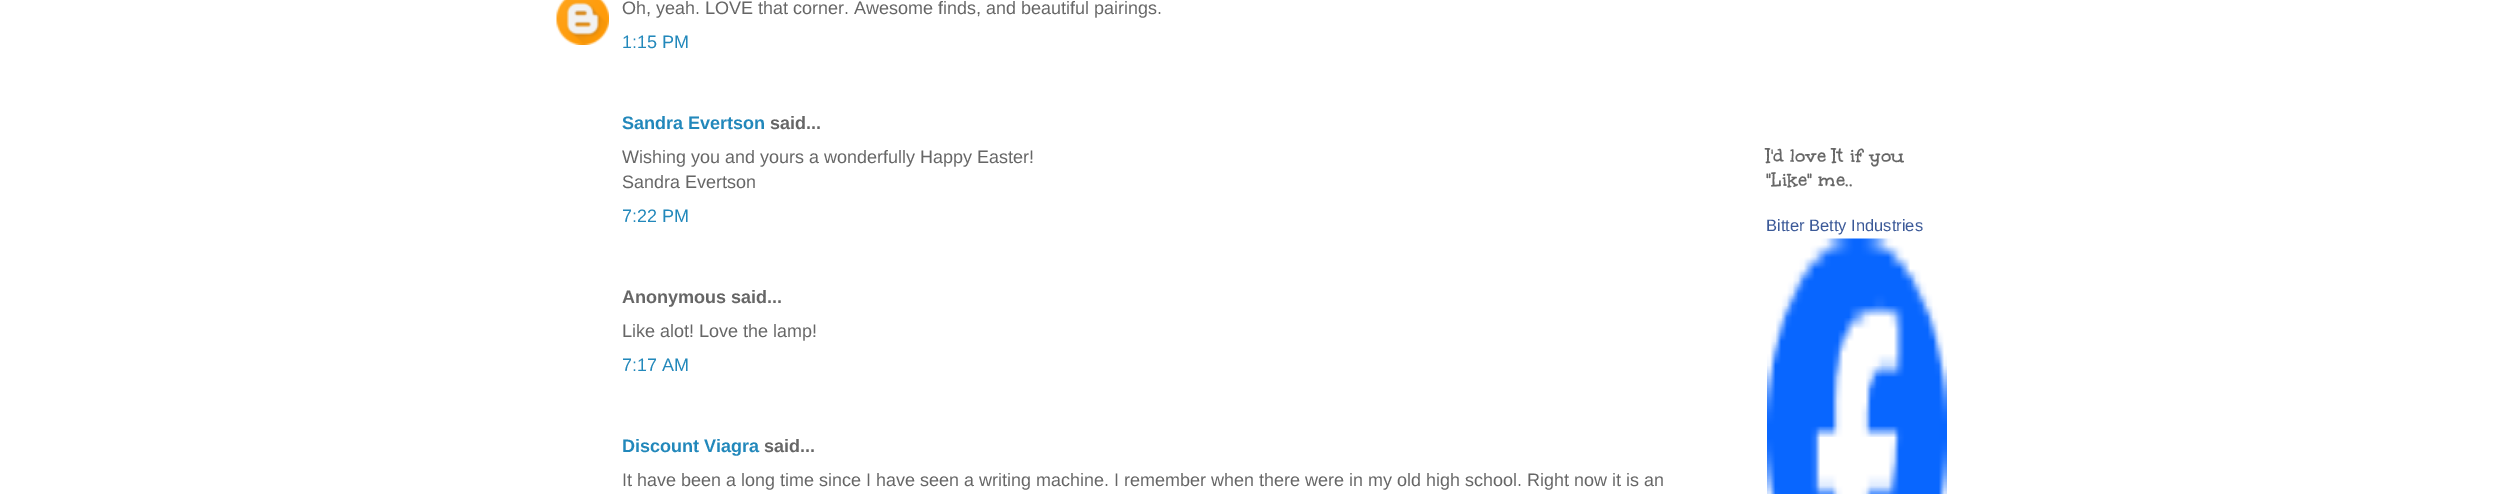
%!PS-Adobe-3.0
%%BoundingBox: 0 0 2512 494
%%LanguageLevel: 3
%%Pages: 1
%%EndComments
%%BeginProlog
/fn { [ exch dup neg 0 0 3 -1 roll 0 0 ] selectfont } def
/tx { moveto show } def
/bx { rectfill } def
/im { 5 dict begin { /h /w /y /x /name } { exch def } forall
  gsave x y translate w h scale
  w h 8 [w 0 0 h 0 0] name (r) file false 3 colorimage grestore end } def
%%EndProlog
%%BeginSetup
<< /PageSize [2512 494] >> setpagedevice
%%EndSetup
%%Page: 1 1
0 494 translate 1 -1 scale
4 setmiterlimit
1 setgray
0 0 2512 494 bx
(image0.raw) 556 0 53 45 im
/LiberationSans-Regular 18 fn
0.4 setgray
(Oh, yeah. LOVE that corner. Awesome finds, and beautiful pairings.) 622 14 tx
0.133 0.533 0.733 setrgbcolor
(1:15 PM) 622 48 tx
/LiberationSans-Bold 18 fn
(Sandra Evertson) 622 129 tx
0.4 setgray
(said...) 770 129 tx
/LiberationSans-Regular 18 fn
(Wishing you and yours a wonderfully Happy Easter!) 622 163 tx
(Sandra Evertson) 622 188 tx
0.133 0.533 0.733 setrgbcolor
(7:22 PM) 622 222 tx
/LiberationSans-Bold 18 fn
0.4 setgray
(Anonymous said...) 622 303 tx
/LiberationSans-Regular 18 fn
(Like alot! Love the lamp!) 622 337 tx
0.133 0.533 0.733 setrgbcolor
(7:17 AM) 622 371 tx
/LiberationSans-Bold 18 fn
(Discount Viagra) 622 452 tx
0.4 setgray
(said...) 764 452 tx
/LiberationSans-Regular 18 fn
(It have been a long time since I have seen a writing machine. I remember when there were in my old high school. Right now it is an) 622 486 tx
/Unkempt-Bold 21 fn
(I'd love It if you) 1766 163 tx
("Like" me..) 1766 187 tx
/LiberationSans-Regular 16.5 fn
0.231 0.349 0.596 setrgbcolor
(Bitter Betty Industries) 1766 231 tx
(image1.raw) 1767 238 180 256 im
showpage
%%EOF
